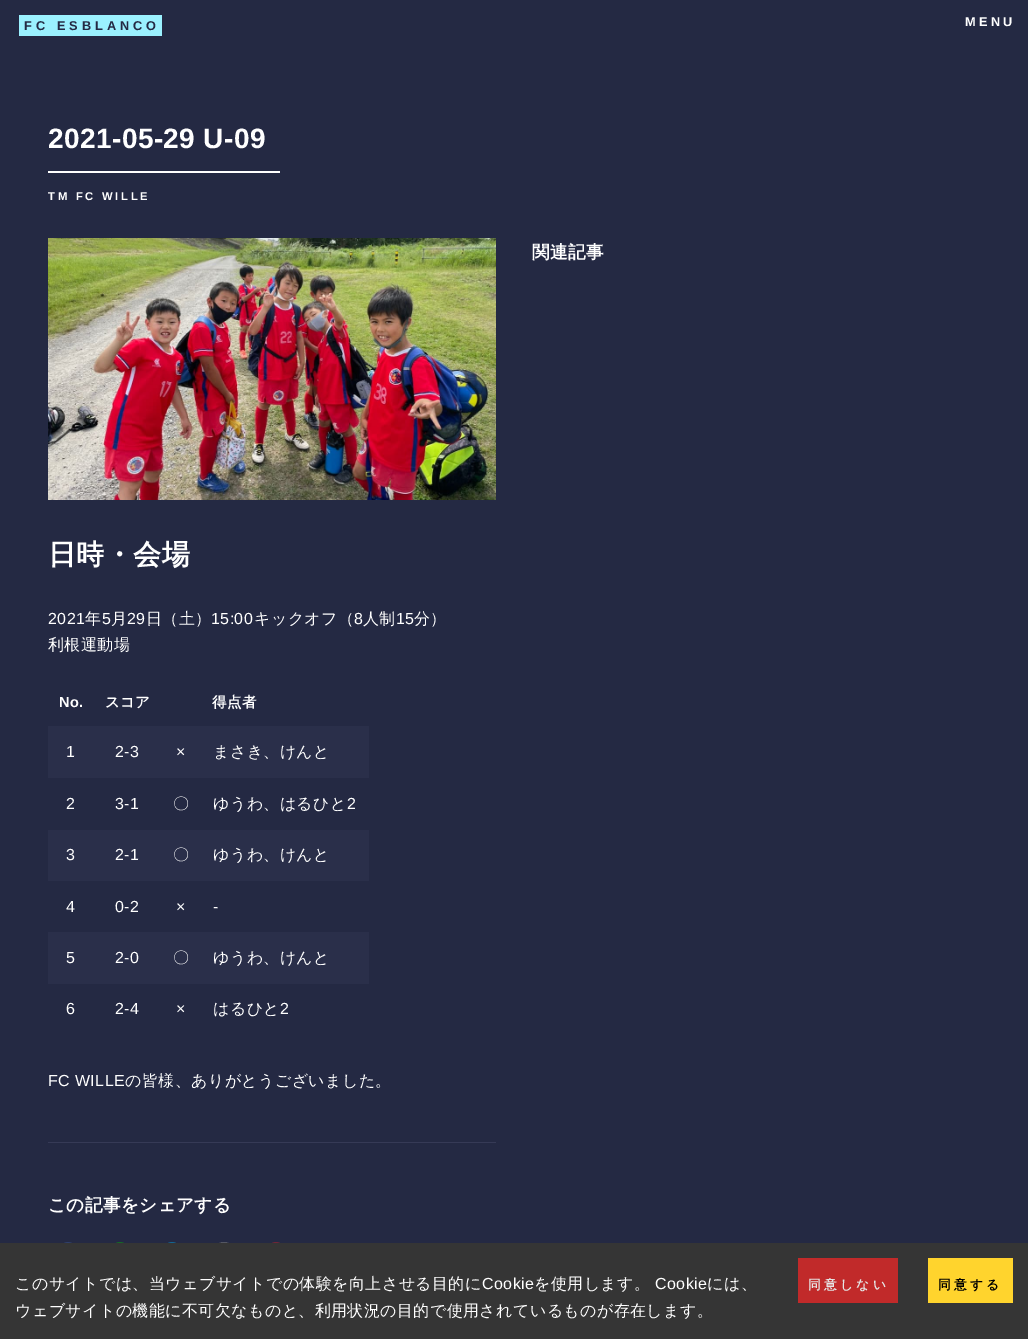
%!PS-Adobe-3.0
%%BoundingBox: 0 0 1028 1339
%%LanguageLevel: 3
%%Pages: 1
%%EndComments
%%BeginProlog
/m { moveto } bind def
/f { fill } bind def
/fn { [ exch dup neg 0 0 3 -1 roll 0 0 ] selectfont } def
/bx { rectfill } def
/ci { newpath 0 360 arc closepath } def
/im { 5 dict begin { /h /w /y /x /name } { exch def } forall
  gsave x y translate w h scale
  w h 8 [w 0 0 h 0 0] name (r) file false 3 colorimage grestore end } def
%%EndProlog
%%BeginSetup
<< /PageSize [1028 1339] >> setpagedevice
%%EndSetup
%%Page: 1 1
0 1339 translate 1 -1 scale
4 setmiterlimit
0.141 0.161 0.263 setrgbcolor
0 0 1028 1339 bx
0.608 0.945 1 setrgbcolor
19 15 143 21 bx
/LiberationSans-Bold 12.75 fn
0.141 0.161 0.263 setrgbcolor
24 30 m 4 0 (FC ESBLANCO) ashow
1 setgray
965 26 m 3.25 0 (MENU) ashow
/LiberationSans-Bold 28 fn
48 148 m 0.4 0 (2021-05-29 U-09) ashow
48 171 232 2 bx
/LiberationSans-Bold 11.25 fn
48 200 m 2.75 0 (TM FC WILLE) ashow
/WenQuanYiZenHei-Bold 17.6 fn
532 258 m 0.4 0 (関連記事) ashow
(image0.raw) 48 238 448 262 im
/WenQuanYiZenHei-Bold 28 fn
48 564 m 0.4 0 (日時・会場) ashow
/LiberationSans-Regular 16 fn
48 624 m 0.4 0 (2021) ashow
/WenQuanYiZenHei-Medium 16 fn
85 624 m 0.4 0 (年) ashow
/LiberationSans-Regular 16 fn
102 624 m 0.4 0 (5) ashow
/WenQuanYiZenHei-Medium 16 fn
111 624 m 0.4 0 (月) ashow
/LiberationSans-Regular 16 fn
127 624 m 0.4 0 (29) ashow
/WenQuanYiZenHei-Medium 16 fn
146 624 m 0.4 0 (日（土）) ashow
/LiberationSans-Regular 16 fn
211 624 m 0.4 0 (15:00) ashow
/WenQuanYiZenHei-Medium 16 fn
254 624 m 0.4 0 (キックオフ（) ashow
/LiberationSans-Regular 16 fn
354 624 m 0.4 0 (8) ashow
/WenQuanYiZenHei-Medium 16 fn
363 624 m 0.4 0 (人制) ashow
/LiberationSans-Regular 16 fn
396 624 m 0.4 0 (15) ashow
/WenQuanYiZenHei-Medium 16 fn
414 624 m 0.4 0 (分）) ashow
48 650 m 0.4 0 (利根運動場) ashow
/LiberationSans-Bold 14.5 fn
59 707 m 0.4 0 (No.) ashow
/WenQuanYiZenHei-Bold 14.5 fn
105 707 m 0.4 0 (スコア) ashow
212 707 m 0.4 0 (得点者) ashow
0.165 0.184 0.29 setrgbcolor
48 726 321 52 bx
/LiberationSans-Regular 16 fn
1 setgray
66 757 m 0.4 0 (1) ashow
115 757 m 0.4 0 (2-3) ashow
176 757 m 0.4 0 (×) ashow
/WenQuanYiZenHei-Medium 16 fn
213 757 m 0.4 0 (まさき、けんと) ashow
/LiberationSans-Regular 16 fn
66 809 m 0.4 0 (2) ashow
115 809 m 0.4 0 (3-1) ashow
/WenQuanYiZenHei-Medium 16 fn
173 809 m 0.4 0 (〇) ashow
213 809 m 0.4 0 (ゆうわ、はるひと) ashow
/LiberationSans-Regular 16 fn
347 809 m 0.4 0 (2) ashow
0.165 0.184 0.29 setrgbcolor
48 830 321 51 bx
1 setgray
66 860 m 0.4 0 (3) ashow
115 860 m 0.4 0 (2-1) ashow
/WenQuanYiZenHei-Medium 16 fn
173 860 m 0.4 0 (〇) ashow
213 860 m 0.4 0 (ゆうわ、けんと) ashow
/LiberationSans-Regular 16 fn
66 912 m 0.4 0 (4) ashow
115 912 m 0.4 0 (0-2) ashow
176 912 m 0.4 0 (×) ashow
213 912 m 0.4 0 (-) ashow
0.165 0.184 0.29 setrgbcolor
48 932 321 52 bx
1 setgray
66 963 m 0.4 0 (5) ashow
115 963 m 0.4 0 (2-0) ashow
/WenQuanYiZenHei-Medium 16 fn
173 963 m 0.4 0 (〇) ashow
213 963 m 0.4 0 (ゆうわ、けんと) ashow
/LiberationSans-Regular 16 fn
66 1014 m 0.4 0 (6) ashow
115 1014 m 0.4 0 (2-4) ashow
176 1014 m 0.4 0 (×) ashow
/WenQuanYiZenHei-Medium 16 fn
213 1014 m 0.4 0 (はるひと) ashow
/LiberationSans-Regular 16 fn
280 1014 m 0.4 0 (2) ashow
48 1086 m 0.4 0 (FC WILLE) ashow
/WenQuanYiZenHei-Medium 16 fn
125 1086 m 0.4 0 (の皆様、ありがとうございました。) ashow
0.212 0.227 0.337 setrgbcolor
48 1142 448 1 bx
/WenQuanYiZenHei-Bold 17.6 fn
1 setgray
48 1211 m 0.4 0 (この記事をシェアする) ashow
(image1.raw) 64 1242 8 1 im
(image2.raw) 116 1242 8 1 im
(image3.raw) 168 1242 8 1 im
0.498 setgray
224 1262 19.5 ci f
(image4.raw) 272 1242 8 1 im
0.208 setgray
0 1243 1028 96 bx
/WenQuanYiZenHei-Medium 16 fn
1 setgray
15 1289 m 0.4 0 (このサイトでは、当ウェブサイトでの体験を向上させる目的に) ashow
/LiberationSans-Regular 16 fn
482 1289 m 0.4 0 (Cookie) ashow
/WenQuanYiZenHei-Medium 16 fn
534 1289 m 0.4 0 (を使用します。) ashow
/LiberationSans-Regular 16 fn
655 1289 m 0.4 0 (Cookie) ashow
/WenQuanYiZenHei-Medium 16 fn
707 1289 m 0.4 0 (には、) ashow
15 1316 m 0.4 0 (ウェブサイトの機能に不可欠なものと、利用状況の目的で使用されているものが存在します。) ashow
0.757 0.165 0.165 setrgbcolor
798 1258 100 45 bx
/WenQuanYiZenHei-Bold 12.75 fn
0.898 setgray
808 1289 m 3.25 0 (同意しない) ashow
1 0.831 0.176 setrgbcolor
928 1258 85 45 bx
0 setgray
938 1289 m 3.25 0 (同意する) ashow
showpage
%%EOF
